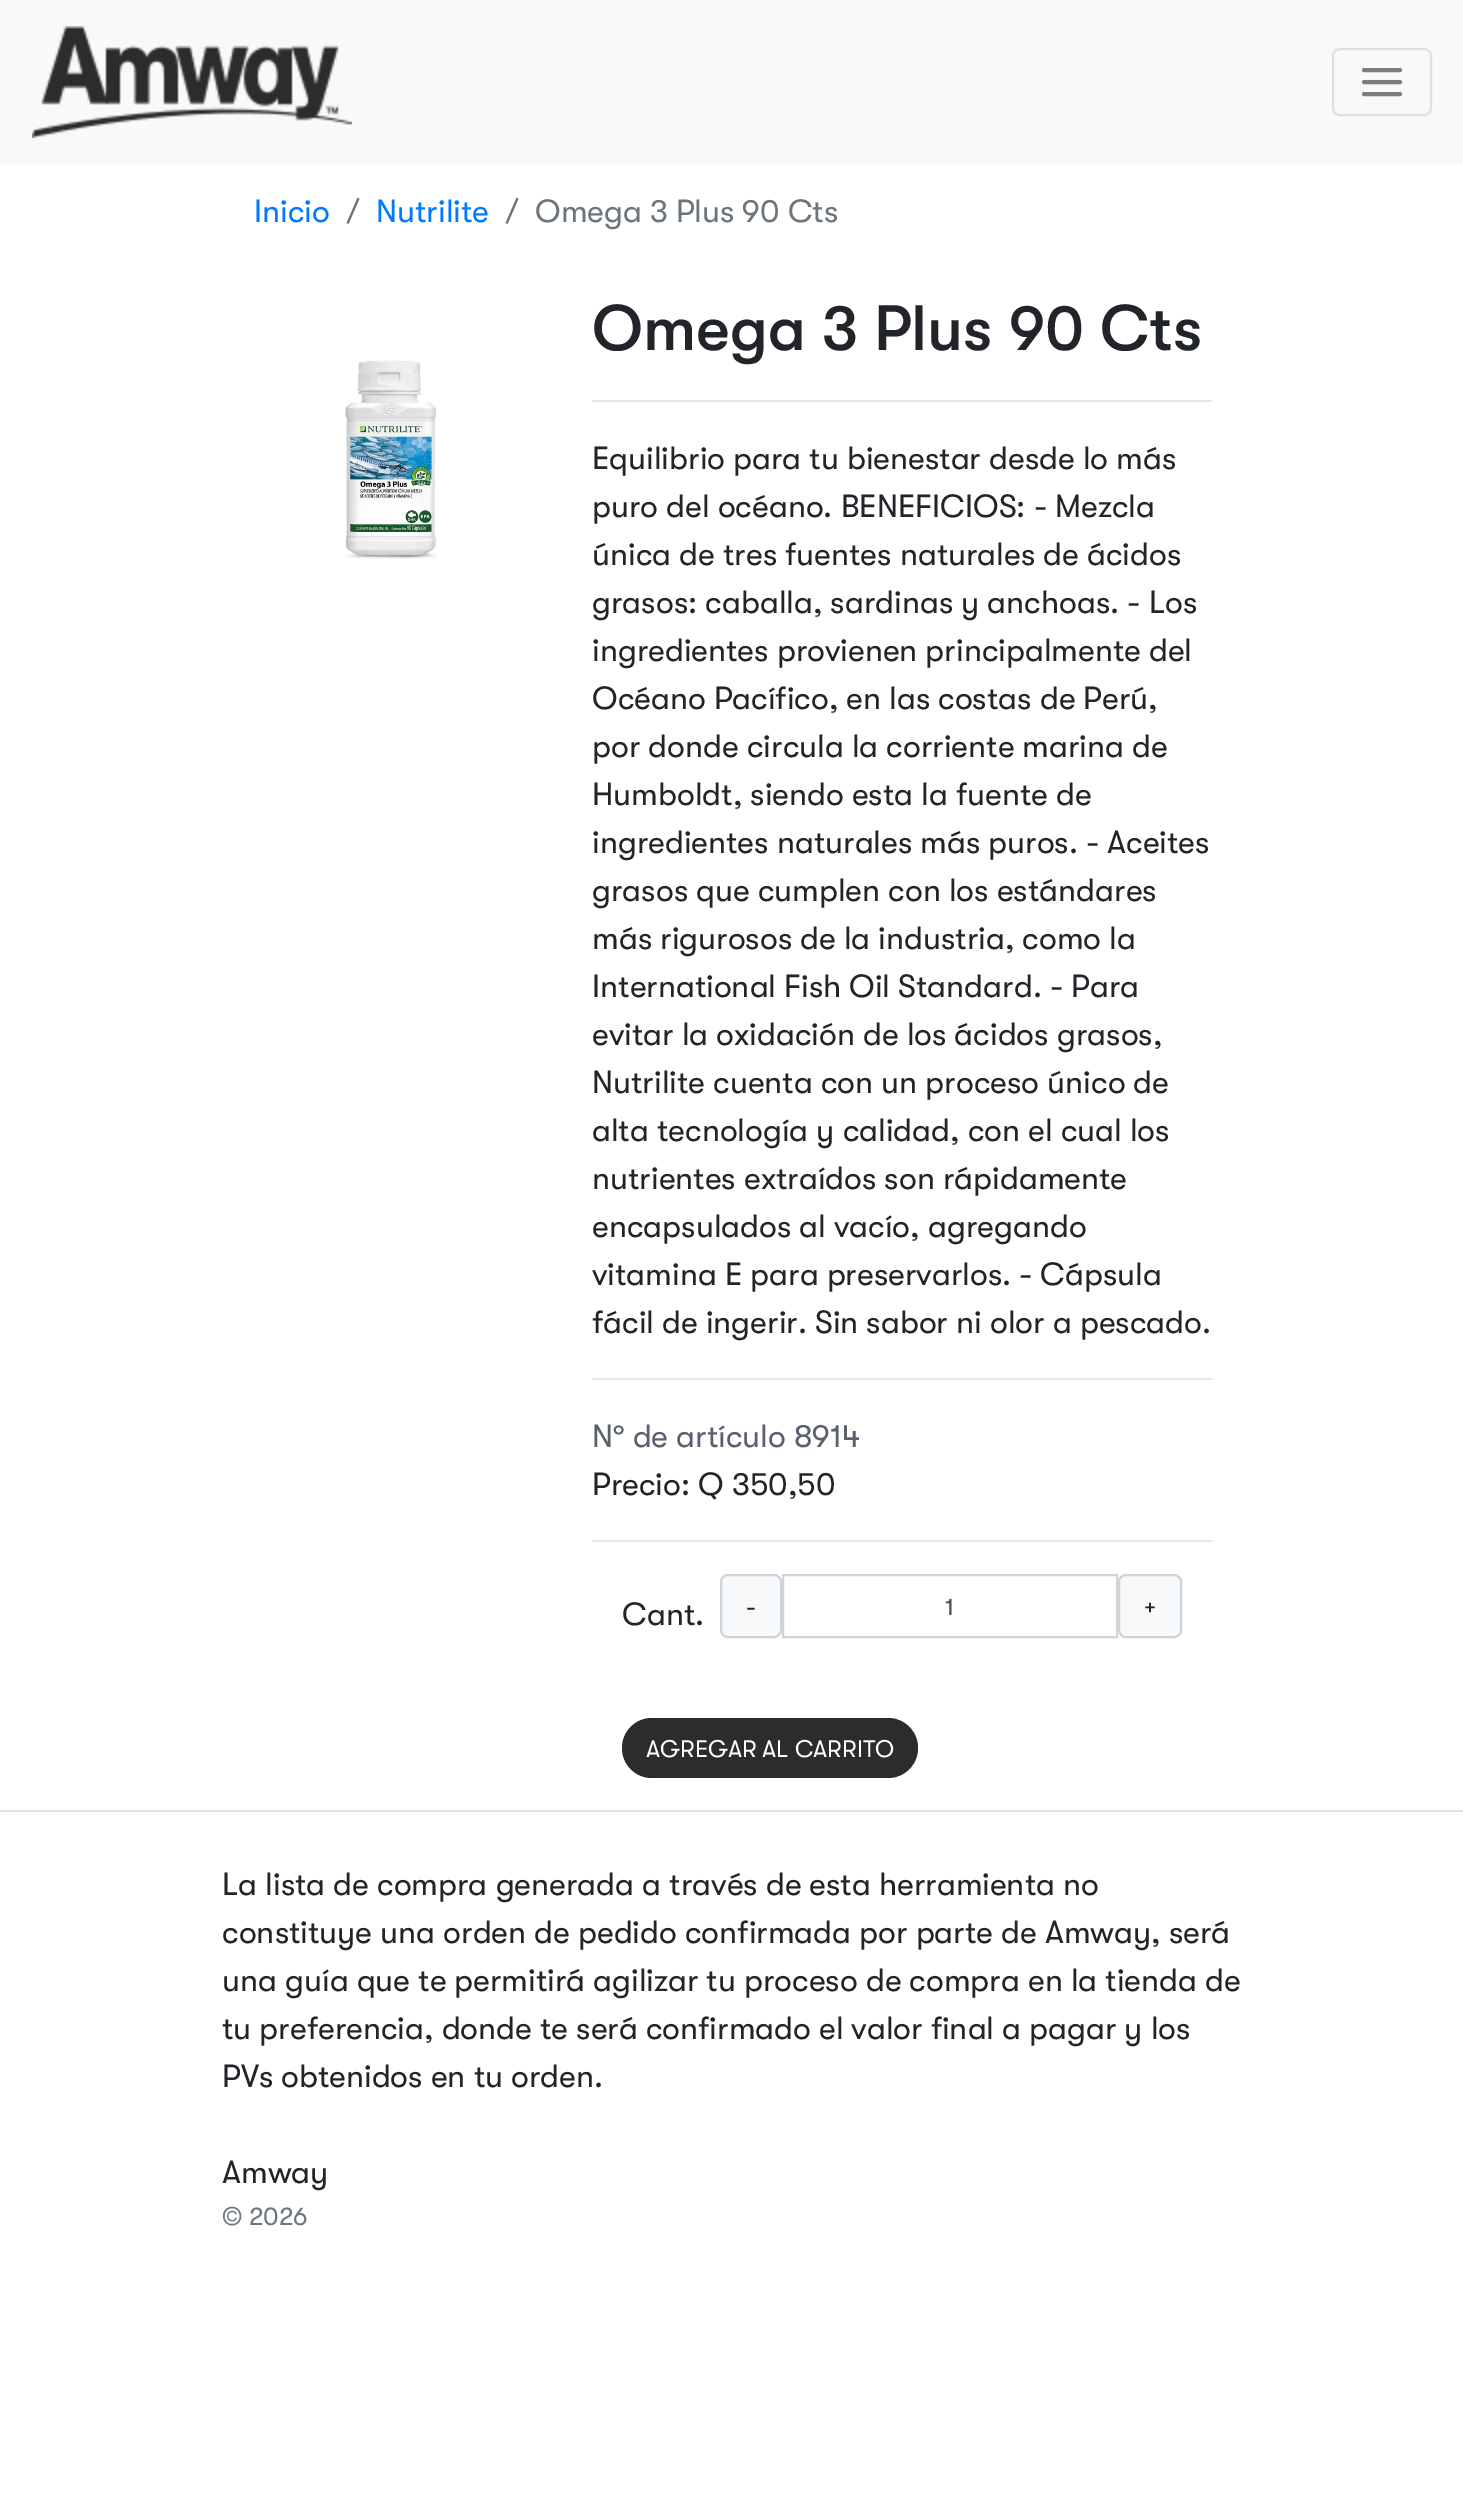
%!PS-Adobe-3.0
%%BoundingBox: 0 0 1463 2494
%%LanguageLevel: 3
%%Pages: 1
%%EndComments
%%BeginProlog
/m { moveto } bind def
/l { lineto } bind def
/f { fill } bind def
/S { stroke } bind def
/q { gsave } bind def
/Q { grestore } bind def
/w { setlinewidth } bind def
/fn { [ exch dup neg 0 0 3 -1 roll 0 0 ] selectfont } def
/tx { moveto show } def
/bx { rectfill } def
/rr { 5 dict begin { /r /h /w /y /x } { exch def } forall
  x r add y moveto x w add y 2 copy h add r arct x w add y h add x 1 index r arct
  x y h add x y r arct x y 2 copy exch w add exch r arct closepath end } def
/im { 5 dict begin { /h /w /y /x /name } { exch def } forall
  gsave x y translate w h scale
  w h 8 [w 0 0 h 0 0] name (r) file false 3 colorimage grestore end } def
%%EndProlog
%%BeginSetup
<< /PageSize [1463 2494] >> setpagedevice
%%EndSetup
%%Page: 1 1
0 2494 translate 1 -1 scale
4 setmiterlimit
1 setgray
0 0 1463 2494 bx
0.973 0.976 0.98 setrgbcolor
0 0 1463 164 bx
(image0.raw) 32 26 320 112 im
0.875 0.878 0.882 setrgbcolor
2 w
1333 49 98 66 7 rr S
0.486 0.49 0.49 setrgbcolor
4 w
1 setlinecap
1 setlinejoin
1364 82 m 1400 82 l 1364 70 m 1400 70 l 1364 94 m 1400 94 l S
/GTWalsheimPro-Regular 32 fn
0 0.482 1 setrgbcolor
(Inicio) 254 222 tx
0.424 0.459 0.49 setrgbcolor
(/) 346 222 tx
0 0.482 1 setrgbcolor
(Nutrilite) 376 222 tx
0.424 0.459 0.49 setrgbcolor
(/) 505 222 tx
(Omega 3 Plus 90 Cts) 535 222 tx
(image1.raw) 345 360 93 199 im
/GTWalsheimPro-Medium 64 fn
0.129 0.145 0.161 setrgbcolor
(Omega 3 Plus 90 Cts) 592 350 tx
0.902 setgray
592 400 620 2 bx
/GTWalsheimPro-Regular 32 fn
0.129 0.145 0.161 setrgbcolor
(Equilibrio para tu bienestar desde lo más) 592 469 tx
(puro del océano. BENEFICIOS: - Mezcla) 592 517 tx
(única de tres fuentes naturales de ácidos) 592 565 tx
(grasos: caballa, sardinas y anchoas. - Los) 592 613 tx
(ingredientes provienen principalmente del) 592 661 tx
(Océano Pacífico, en las costas de Perú,) 592 709 tx
(por donde circula la corriente marina de) 592 757 tx
(Humboldt, siendo esta la fuente de) 592 805 tx
(ingredientes naturales más puros. - Aceites) 592 853 tx
(grasos que cumplen con los estándares) 592 901 tx
(más rigurosos de la industria, como la) 592 949 tx
(International Fish Oil Standard. - Para) 592 997 tx
(evitar la oxidación de los ácidos grasos,) 592 1045 tx
(Nutrilite cuenta con un proceso único de) 592 1093 tx
(alta tecnología y calidad, con el cual los) 592 1141 tx
(nutrientes extraídos son rápidamente) 592 1189 tx
(encapsulados al vacío, agregando) 592 1237 tx
(vitamina E para preservarlos. - Cápsula) 592 1285 tx
(fácil de ingerir. Sin sabor ni olor a pescado.) 592 1333 tx
0.902 setgray
592 1378 620 2 bx
0.357 0.376 0.431 setrgbcolor
(Nº de artículo 8914) 592 1447 tx
0.129 0.145 0.161 setrgbcolor
(Precio: Q 350,50) 592 1495 tx
0.902 setgray
592 1540 620 2 bx
0.129 0.145 0.161 setrgbcolor
(Cant.) 622 1625 tx
0.973 0.976 0.98 setrgbcolor
721 1575 60 62 7 rr q f Q
0.808 0.831 0.855 setrgbcolor
2 w
0 setlinecap
0 setlinejoin
S
/GTWalsheimPro-Regular 24 fn
0.129 0.145 0.161 setrgbcolor
(-) 746 1615 tx
0.808 0.831 0.855 setrgbcolor
783 1575 334 62 rectstroke
0.286 0.314 0.341 setrgbcolor
(1) 945 1615 tx
0.973 0.976 0.98 setrgbcolor
1119 1575 62 62 7 rr q f Q
0.808 0.831 0.855 setrgbcolor
S
0.129 0.145 0.161 setrgbcolor
(+) 1144 1615 tx
0.173 setgray
622 1718 296 60 30 rr f
1 setgray
(AGREGAR AL CARRITO) 646 1757 tx
0.871 0.886 0.902 setrgbcolor
0 1810 1463 2 bx
/GTWalsheimPro-Regular 32 fn
0.129 0.145 0.161 setrgbcolor
(La lista de compra generada a través de esta herramienta no) 222 1895 tx
(constituye una orden de pedido confirmada por parte de Amway, será) 222 1943 tx
(una guía que te permitirá agilizar tu proceso de compra en la tienda de) 222 1991 tx
(tu preferencia, donde te será confirmado el valor final a pagar y los) 222 2039 tx
(PVs obtenidos en tu orden.) 222 2087 tx
(Amway) 222 2183 tx
/GTWalsheimPro-Regular 25.5 fn
0.424 0.459 0.49 setrgbcolor
(© 2026) 222 2225 tx
showpage
%%EOF
